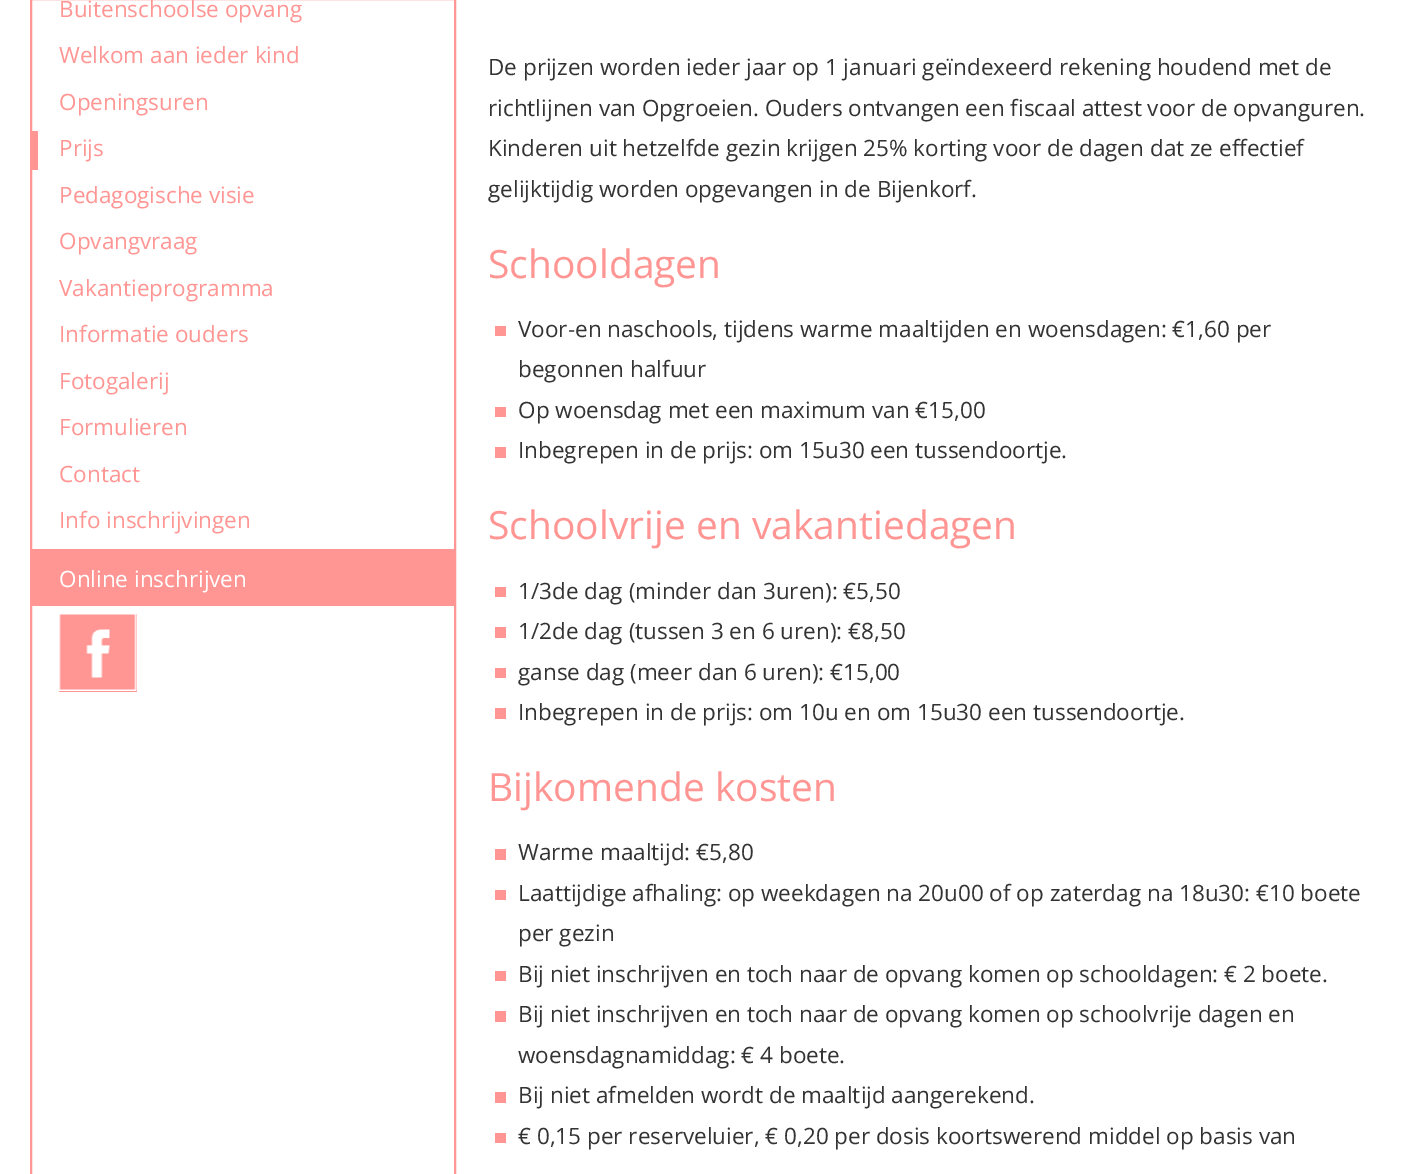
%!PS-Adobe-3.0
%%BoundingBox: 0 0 1401 1174
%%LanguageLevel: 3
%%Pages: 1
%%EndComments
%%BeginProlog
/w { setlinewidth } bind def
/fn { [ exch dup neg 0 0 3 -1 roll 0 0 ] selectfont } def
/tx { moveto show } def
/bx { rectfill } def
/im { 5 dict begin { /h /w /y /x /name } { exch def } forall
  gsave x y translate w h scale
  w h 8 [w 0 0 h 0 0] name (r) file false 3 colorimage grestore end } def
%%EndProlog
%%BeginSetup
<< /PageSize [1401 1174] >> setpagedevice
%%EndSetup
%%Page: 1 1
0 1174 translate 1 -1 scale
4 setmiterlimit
1 setgray
0 0 1401 1174 bx
1 0.588 0.576 setrgbcolor
2 w
31 -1 424 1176 rectstroke
/OpenSans-Regular 22.5 fn
(Buitenschoolse opvang) 59 17 tx
(Welkom aan ieder kind) 59 63 tx
(Openingsuren) 59 110 tx
32 131 6 39 bx
(Prijs) 59 156 tx
(Pedagogische visie) 59 203 tx
(Opvangvraag) 59 249 tx
(Vakantieprogramma) 59 296 tx
(Informatie ouders) 59 342 tx
(Fotogalerij) 59 389 tx
(Formulieren) 59 435 tx
(Contact) 59 482 tx
(Info inschrijvingen) 59 528 tx
32 549 422 57 bx
1 setgray
(Online inschrijven) 59 587 tx
1 0.588 0.576 setrgbcolor
59 614 78 78 bx
(image0.raw) 59 614 78 77 im
0.2 setgray
(De prijzen worden ieder jaar op 1 januari geïndexeerd rekening houdend met de) 488 75 tx
(richtlijnen van Opgroeien. Ouders ontvangen een fiscaal attest voor de opvanguren.) 488 116 tx
(Kinderen uit hetzelfde gezin krijgen 25% korting voor de dagen dat ze effectief) 488 156 tx
(gelijktijdig worden opgevangen in de Bijenkorf.) 488 197 tx
/OpenSans-Regular 39 fn
1 0.588 0.576 setrgbcolor
(Schooldagen) 488 278 tx
495 326 11 10 bx
/OpenSans-Regular 22.5 fn
0.2 setgray
(Voor-en naschools, tijdens warme maaltijden en woensdagen: €1,60 per) 518 337 tx
(begonnen halfuur) 518 377 tx
1 0.588 0.576 setrgbcolor
495 407 11 10 bx
0.2 setgray
(Op woensdag met een maximum van €15,00) 518 418 tx
1 0.588 0.576 setrgbcolor
495 447 11 11 bx
0.2 setgray
(Inbegrepen in de prijs: om 15u30 een tussendoortje.) 518 458 tx
/OpenSans-Regular 39 fn
1 0.588 0.576 setrgbcolor
(Schoolvrije en vakantiedagen) 488 539 tx
495 587 11 10 bx
/OpenSans-Regular 22.5 fn
0.2 setgray
(1/3de dag \(minder dan 3uren\): €5,50) 518 599 tx
1 0.588 0.576 setrgbcolor
495 627 11 11 bx
0.2 setgray
(1/2de dag \(tussen 3 en 6 uren\): €8,50) 518 639 tx
1 0.588 0.576 setrgbcolor
495 668 11 10 bx
0.2 setgray
(ganse dag \(meer dan 6 uren\): €15,00) 518 680 tx
1 0.588 0.576 setrgbcolor
495 708 11 11 bx
0.2 setgray
(Inbegrepen in de prijs: om 10u en om 15u30 een tussendoortje.) 518 720 tx
/OpenSans-Regular 39 fn
1 0.588 0.576 setrgbcolor
(Bijkomende kosten) 488 801 tx
495 849 11 11 bx
/OpenSans-Regular 22.5 fn
0.2 setgray
(Warme maaltijd: €5,80) 518 860 tx
1 0.588 0.576 setrgbcolor
495 890 11 10 bx
0.2 setgray
(Laattijdige afhaling: op weekdagen na 20u00 of op zaterdag na 18u30: €10 boete) 518 901 tx
(per gezin) 518 941 tx
1 0.588 0.576 setrgbcolor
495 971 11 10 bx
0.2 setgray
(Bij niet inschrijven en toch naar de opvang komen op schooldagen: € 2 boete.) 518 982 tx
1 0.588 0.576 setrgbcolor
495 1011 11 11 bx
0.2 setgray
(Bij niet inschrijven en toch naar de opvang komen op schoolvrije dagen en) 518 1022 tx
(woensdagnamiddag: € 4 boete.) 518 1063 tx
1 0.588 0.576 setrgbcolor
495 1092 11 11 bx
0.2 setgray
(Bij niet afmelden wordt de maaltijd aangerekend.) 518 1103 tx
1 0.588 0.576 setrgbcolor
495 1133 11 10 bx
0.2 setgray
(€ 0,15 per reserveluier, € 0,20 per dosis koortswerend middel op basis van) 518 1144 tx
showpage
%%EOF
